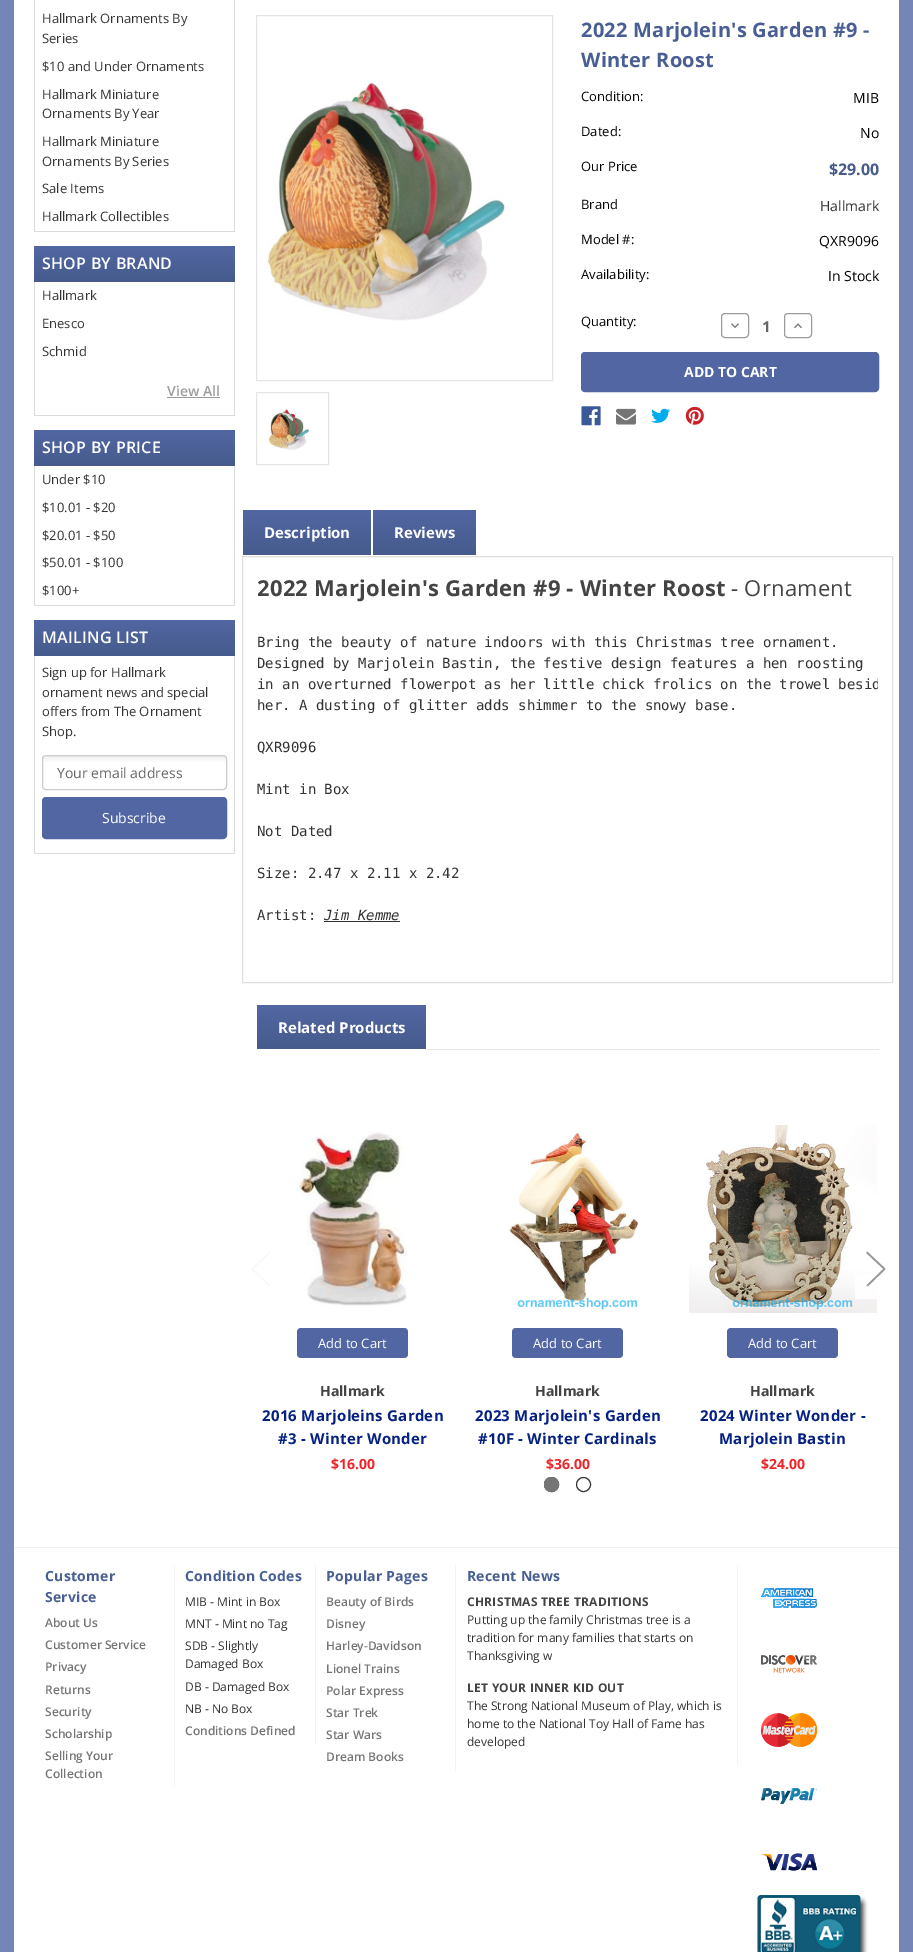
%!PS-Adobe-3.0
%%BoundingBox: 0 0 913 1952
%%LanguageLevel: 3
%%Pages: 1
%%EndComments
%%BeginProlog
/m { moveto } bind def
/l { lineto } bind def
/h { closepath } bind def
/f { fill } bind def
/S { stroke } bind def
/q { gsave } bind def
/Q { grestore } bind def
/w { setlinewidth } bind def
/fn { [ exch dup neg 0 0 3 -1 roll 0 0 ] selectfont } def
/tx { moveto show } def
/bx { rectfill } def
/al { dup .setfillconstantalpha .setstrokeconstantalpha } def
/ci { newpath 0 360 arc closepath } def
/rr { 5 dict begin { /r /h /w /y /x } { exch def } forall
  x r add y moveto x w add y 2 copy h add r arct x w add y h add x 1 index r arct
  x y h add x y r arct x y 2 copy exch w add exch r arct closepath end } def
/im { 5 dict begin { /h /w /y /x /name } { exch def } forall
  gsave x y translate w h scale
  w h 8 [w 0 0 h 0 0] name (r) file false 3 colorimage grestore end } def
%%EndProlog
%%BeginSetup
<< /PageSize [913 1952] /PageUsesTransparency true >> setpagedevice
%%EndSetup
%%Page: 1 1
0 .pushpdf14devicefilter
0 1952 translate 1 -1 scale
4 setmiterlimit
0.459 0.522 0.714 setrgbcolor
0 0 913 1952 bx
1 setgray
14 0 885 1547 bx
0.859 setgray
234 0 1 232 bx
34 231 201 1 bx
34 0 1 232 bx
/OpenSans-Regular 13 fn
0.2 setgray
(Hallmark Ornaments By) 42 23 tx
(Series) 42 43 tx
($10 and Under Ornaments) 42 71 tx
(Hallmark Miniature) 42 99 tx
(Ornaments By Year) 42 118 tx
(Hallmark Miniature) 42 146 tx
(Ornaments By Series) 42 166 tx
(Sale Items) 42 193 tx
(Hallmark Collectibles) 42 221 tx
q 34 246 m 235 246 l 235 282 l 34 282 l h clip newpath
<< /ShadingType 2 /ColorSpace /DeviceRGB /Coords [135 246 135 282] /Extend [true true] /Function << /FunctionType 2 /Domain [0 1] /C0 [0.322 0.4 0.639] /C1 [0.275 0.357 0.549] /N 1 >> >> shfill Q
/OpenSans-SemiBold 16 fn
1 setgray
42 269 m 0.25 0 (SHOP BY BRAND) ashow
0.859 setgray
234 282 1 134 bx
34 415 201 1 bx
34 282 1 134 bx
/OpenSans-Regular 13 fn
0.2 setgray
(Hallmark) 42 300 tx
(Enesco) 42 328 tx
(Schmid) 42 356 tx
/OpenSans-SemiBold 14 fn
0.616 0.612 0.612 setrgbcolor
(View All) 167 396 tx
167 397 53 1 bx
q 34 430 m 235 430 l 235 466 l 34 466 l h clip newpath
<< /ShadingType 2 /ColorSpace /DeviceRGB /Coords [135 430 135 466] /Extend [true true] /Function << /FunctionType 2 /Domain [0 1] /C0 [0.322 0.4 0.639] /C1 [0.275 0.357 0.549] /N 1 >> >> shfill Q
/OpenSans-SemiBold 16 fn
1 setgray
42 453 m 0.25 0 (SHOP BY PRICE) ashow
0.859 setgray
234 466 1 140 bx
34 605 201 1 bx
34 466 1 140 bx
/OpenSans-Regular 13 fn
0.2 setgray
(Under $10) 42 484 tx
($10.01 - $20) 42 512 tx
($20.01 - $50) 42 540 tx
($50.01 - $100) 42 567 tx
($100+) 42 595 tx
q 34 620 m 235 620 l 235 656 l 34 656 l h clip newpath
<< /ShadingType 2 /ColorSpace /DeviceRGB /Coords [135 620 135 656] /Extend [true true] /Function << /FunctionType 2 /Domain [0 1] /C0 [0.322 0.4 0.639] /C1 [0.275 0.357 0.549] /N 1 >> >> shfill Q
/OpenSans-SemiBold 16 fn
1 setgray
42 643 m 0.25 0 (MAILING LIST) ashow
0.859 setgray
234 656 1 198 bx
34 853 201 1 bx
34 656 1 198 bx
/OpenSans-Regular 13 fn
0.2 setgray
(Sign up for Hallmark) 42 677 tx
(ornament news and special) 42 697 tx
(offers from The Ornament) 42 716 tx
(Shop.) 42 736 tx
q
42 755 185 35 4 rr clip newpath
q 42 756 m 227 756 l 227 789 l 42 789 l h clip newpath
<< /ShadingType 2 /ColorSpace /DeviceRGB /Coords [135 756 135 789] /Extend [true true] /Function << /FunctionType 3 /Domain [0 1] /Functions [<< /FunctionType 2 /Domain [0 1] /C0 [0.933 0.933 0.933] /C1 [1 1 1] /N 1 >> << /FunctionType 2 /Domain [0 1] /C0 [1 1 1] /C1 [1 1 1] /N 1 >>] /Bounds [0.2] /Encode [0 1 0 1] >> >> shfill Q
Q
0.8 setgray
42.5 755.5 184 34 3.5 rr S
/OpenSans-Regular 14 fn
0.4 setgray
(Your email address) 57 778 tx
0.322 0.4 0.639 setrgbcolor
42.5 797.5 184 41 3.5 rr q f Q
S
1 setgray
(Subscribe) 102 823 tx
0.898 setgray
256.5 15.5 296 365 rectstroke
(image0.raw) 267 81 242 240 im
256.5 392.5 72 72 rectstroke
(image1.raw) 269 409 41 41 im
/OpenSans-Bold 20 fn
0.286 0.369 0.573 setrgbcolor
581 37 m 0.25 0 (2022 Marjolein's Garden #9 -) ashow
581 67 m 0.25 0 (Winter Roost) ashow
/OpenSans-Regular 13 fn
0 setgray
(Condition:) 581 101 tx
/OpenSans-Regular 14 fn
(MIB) 853 103 tx
/OpenSans-Regular 13 fn
(Dated:) 581 136 tx
/OpenSans-Regular 14 fn
(No) 860 138 tx
/OpenSans-Regular 13 fn
(Our Price) 581 171 tx
/OpenSans-Bold 16 fn
0.275 0.357 0.549 setrgbcolor
($29.00) 829 175 tx
/OpenSans-Regular 13 fn
0 setgray
(Brand) 581 209 tx
/OpenSans-Regular 14 fn
0.2 setgray
(Hallmark) 820 211 tx
/OpenSans-Regular 13 fn
0 setgray
(Model #:) 581 244 tx
/OpenSans-Regular 14 fn
(QXR9096) 819 246 tx
/OpenSans-Regular 13 fn
(Availability:) 581 279 tx
/OpenSans-Regular 14 fn
(In Stock) 828 281 tx
/OpenSans-Regular 13 fn
(Quantity:) 581 326 tx
0.616 0.612 0.612 setrgbcolor
721.5 313.5 27 24 3.5 rr S
(image2.raw) 731 323 8 5 im
/OpenSans-Bold 15 fn
0.4 setgray
(1) 762 332 tx
0.616 0.612 0.612 setrgbcolor
784.5 313.5 27 24 3.5 rr S
(image3.raw) 794 323 8 6 im
0.322 0.4 0.639 setrgbcolor
581.5 352.5 297 39 3.5 rr q f Q
S
/OpenSans-Bold 14 fn
1 setgray
(ADD TO CART) 684 377 tx
(image4.raw) 581 406 20 20 im
(image5.raw) 616 408 20 17 im
(image6.raw) 651 408 20 15 im
(image7.raw) 685 406 19 19 im
q 243 510 m 371 510 l 371 555 l 243 555 l h clip newpath
<< /ShadingType 2 /ColorSpace /DeviceRGB /Coords [307 510 307 555] /Extend [true true] /Function << /FunctionType 2 /Domain [0 1] /C0 [0.322 0.4 0.639] /C1 [0.275 0.357 0.549] /N 1 >> >> shfill Q
/OpenSans-Bold 15 fn
(Description) 264 538 tx
q 373 510 m 476 510 l 476 555 l 373 555 l h clip newpath
<< /ShadingType 2 /ColorSpace /DeviceRGB /Coords [425 510 425 555] /Extend [true true] /Function << /FunctionType 2 /Domain [0 1] /C0 [0.322 0.4 0.639] /C1 [0.275 0.357 0.549] /N 1 >> >> shfill Q
(Reviews) 394 538 tx
0.882 0.871 0.867 setrgbcolor
242.5 556.5 650 426 rectstroke
/OpenSans-Bold 22 fn
0.267 setgray
257 596 m 0.25 0 (2022 Marjolein's Garden #9 - Winter Roost) ashow
/OpenSans-Regular 22 fn
731 596 m 0.25 0 (- Ornament) ashow
/DejaVuSansMono-Regular 14 fn
0.2 setgray
(Bring the beauty of nature indoors with this Christmas tree ornament.) 257 647 tx
(Designed by Marjolein Bastin, the festive design features a hen roosting) 257 668 tx
q
257 632 621 105 rectclip
(in an overturned flowerpot as her little chick frolics on the trowel besid) 257 689 tx
Q
(her. A dusting of glitter adds shimmer to the snowy base.) 257 710 tx
(QXR9096) 257 752 tx
(Mint in Box) 257 794 tx
(Not Dated) 257 836 tx
(Size: 2.47 x 2.11 x 2.42) 257 878 tx
(Artist:) 257 920 tx
/DejaVuSansMono-Italic 14 fn
(Jim Kemme) 324 920 tx
324 921 76 1 bx
0.898 setgray
427 1049 452 1 bx
q 257 1005 m 426 1005 l 426 1049 l 257 1049 l h clip newpath
<< /ShadingType 2 /ColorSpace /DeviceRGB /Coords [342 1005 342 1049] /Extend [true true] /Function << /FunctionType 2 /Domain [0 1] /C0 [0.322 0.4 0.639] /C1 [0.275 0.357 0.549] /N 1 >> >> shfill Q
/OpenSans-Bold 15 fn
1 setgray
(Related Products) 278 1033 tx
0.976 setgray
1.7 w
1 setlinecap
1 setlinejoin
269.5 1252.5 m 252 1269 l 269.5 1285.5 l S
(image10.raw) 689 1125 188 188 im
0.9 al
1 setgray
855 1275 22 24 bx
1 al
0.6 setgray
867 1252.5 m 884.5 1269 l 867.5 1285.5 l S
(image8.raw) 296 1132 111 174 im
0.322 0.4 0.639 setrgbcolor
297 1328 111 30 4 rr f
/OpenSans-Regular 13 fn
1 setgray
(Add to Cart) 318 1348 tx
/OpenSans-Bold 14 fn
0.267 setgray
(Hallmark) 320 1396 tx
/OpenSans-Bold 15 fn
0.016 0.129 0.51 setrgbcolor
262 1421 m 0.25 0 (2016 Marjoleins Garden) ashow
278 1444 m 0.25 0 (#3 - Winter Wonder) ashow
/OpenSans-Bold 14 fn
0.925 0.137 0.153 setrgbcolor
($16.00) 331 1469 tx
(image9.raw) 508 1130 131 183 im
0.322 0.4 0.639 setrgbcolor
512 1328 111 30 4 rr f
/OpenSans-Regular 13 fn
1 setgray
(Add to Cart) 533 1348 tx
/OpenSans-Bold 14 fn
0.267 setgray
(Hallmark) 535 1396 tx
/OpenSans-Bold 15 fn
0.016 0.129 0.51 setrgbcolor
475 1421 m 0.25 0 (2023 Marjolein's Garden) ashow
478 1444 m 0.25 0 (#10F - Winter Cardinals) ashow
/OpenSans-Bold 14 fn
0.925 0.137 0.153 setrgbcolor
($36.00) 546 1469 tx
0.322 0.4 0.639 setrgbcolor
727 1328 111 30 4 rr f
/OpenSans-Regular 13 fn
1 setgray
(Add to Cart) 748 1348 tx
/OpenSans-Bold 14 fn
0.267 setgray
(Hallmark) 750 1396 tx
/OpenSans-Bold 15 fn
0.016 0.129 0.51 setrgbcolor
700 1421 m 0.25 0 (2024 Winter Wonder -) ashow
719 1444 m 0.25 0 (Marjolein Bastin) ashow
/OpenSans-Bold 14 fn
0.925 0.137 0.153 setrgbcolor
($24.00) 761 1469 tx
0.2 setgray
1 w
0 setlinecap
0 setlinejoin
551.5 1484.5 7 ci S
0.459 setgray
551.5 1484.5 7.5 ci f
0.2 setgray
583.5 1484.5 7 ci S
1 setgray
14 1548 885 404 bx
0.953 setgray
14 1547 885 1 bx
174 1565 1 222 bx
0.286 0.369 0.573 setrgbcolor
45 1581 m 0.25 0 (Customer) ashow
45 1602 m 0.25 0 (Service) ashow
/OpenSans-SemiBold 12 fn
0.459 setgray
(About Us) 45 1627 tx
(Customer Service) 45 1649 tx
(Privacy) 45 1671 tx
(Returns) 45 1694 tx
(Security) 45 1716 tx
(Scholarship) 45 1738 tx
(Selling Your) 45 1760 tx
(Collection) 45 1778 tx
0.953 setgray
315 1565 1 179 bx
/OpenSans-Bold 14 fn
0.286 0.369 0.573 setrgbcolor
185 1581 m 0.25 0 (Condition Codes) ashow
/OpenSans-Regular 12 fn
0.2 setgray
(MIB - Mint in Box) 185 1606 tx
(MNT - Mint no Tag) 185 1628 tx
(SDB - Slightly) 185 1650 tx
(Damaged Box) 185 1668 tx
(DB - Damaged Box) 185 1691 tx
(NB - No Box) 185 1713 tx
/OpenSans-SemiBold 12 fn
0.459 setgray
(Conditions Defined) 185 1735 tx
0.953 setgray
455 1565 1 206 bx
/OpenSans-Bold 14 fn
0.286 0.369 0.573 setrgbcolor
326 1581 m 0.25 0 (Popular Pages) ashow
/OpenSans-SemiBold 12 fn
0.459 setgray
(Beauty of Birds) 326 1606 tx
(Disney) 326 1628 tx
(Harley-Davidson) 326 1650 tx
(Lionel Trains) 326 1673 tx
(Polar Express) 326 1695 tx
(Star Trek) 326 1717 tx
(Star Wars) 326 1739 tx
(Dream Books) 326 1761 tx
0.953 setgray
737 1565 1 200 bx
/OpenSans-Bold 14 fn
0.286 0.369 0.573 setrgbcolor
467 1581 m 0.25 0 (Recent News) ashow
/OpenSans-Bold 12 fn
0.267 setgray
467 1606 m 0.25 0 (CHRISTMAS TREE TRADITIONS) ashow
/OpenSans-Regular 12 fn
0.2 setgray
(Putting up the family Christmas tree is a) 467 1624 tx
(tradition for many families that starts on) 467 1642 tx
(Thanksgiving w) 467 1660 tx
/OpenSans-Bold 12 fn
0.267 setgray
467 1692 m 0.25 0 (LET YOUR INNER KID OUT) ashow
/OpenSans-Regular 12 fn
0.2 setgray
(The Strong National Museum of Play, which is) 467 1710 tx
(home to the National Toy Hall of Fame has) 467 1728 tx
(developed) 467 1746 tx
(image11.raw) 761 1588 56 20 im
(image12.raw) 761 1655 56 18 im
(image13.raw) 761 1713 56 34 im
(image14.raw) 761 1788 56 16 im
(image15.raw) 761 1853 56 18 im
(image16.raw) 757 1895 111 57 im
.poppdf14devicefilter showpage
%%EOF
